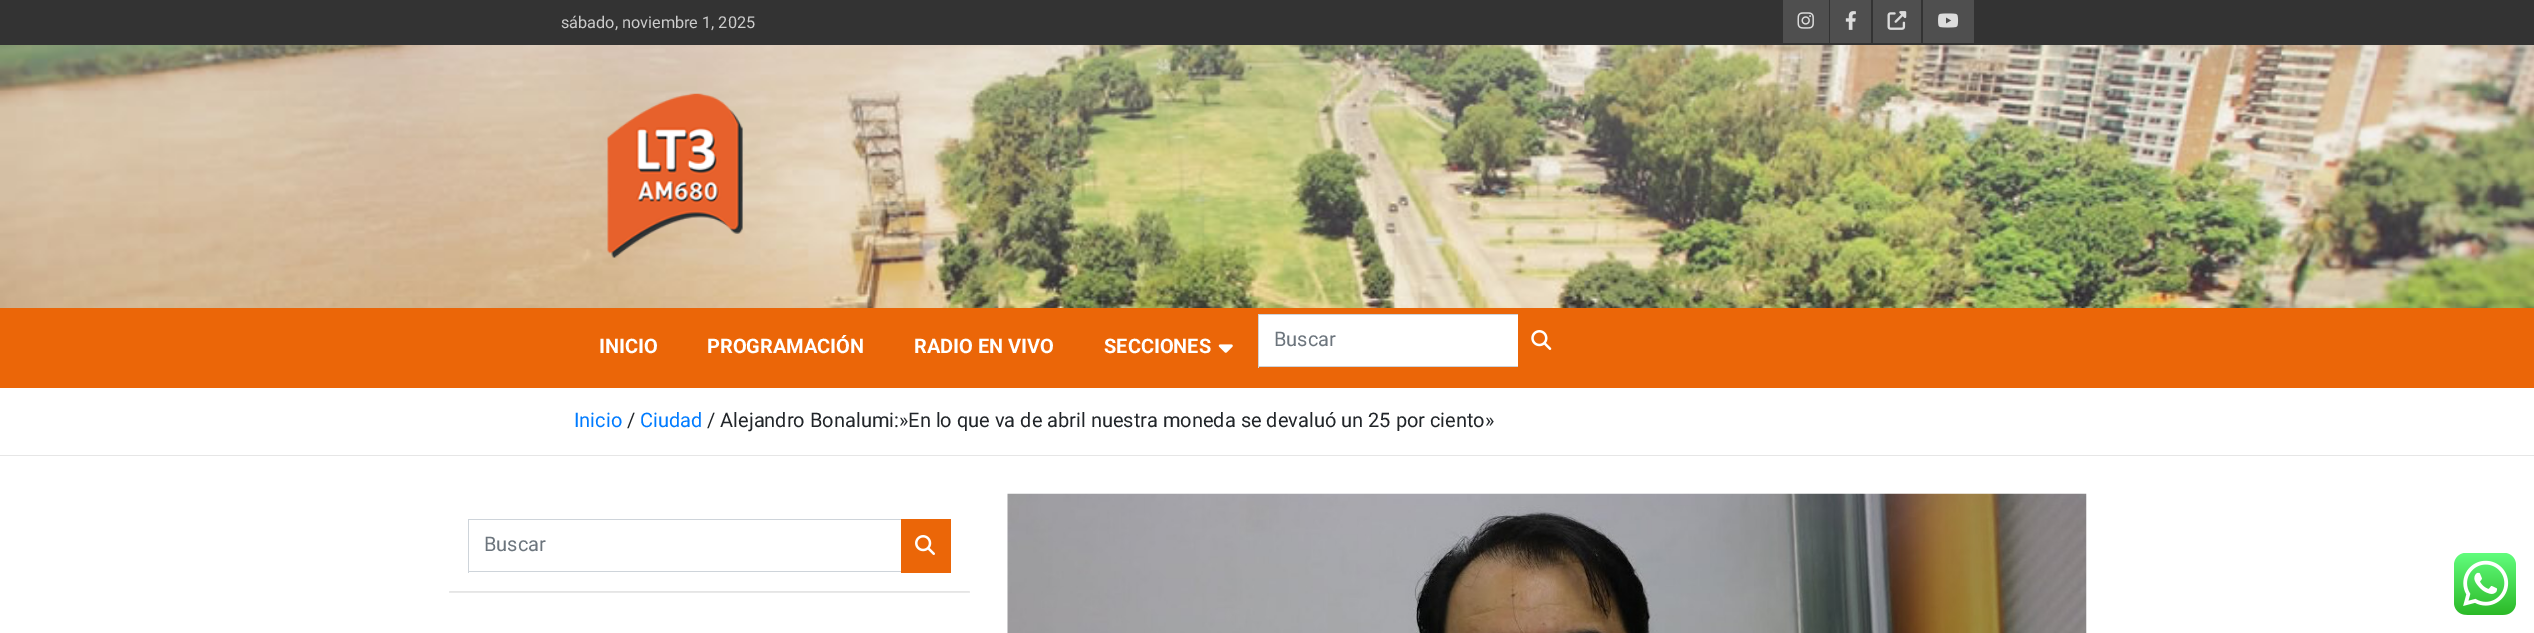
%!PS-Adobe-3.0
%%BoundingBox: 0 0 2534 633
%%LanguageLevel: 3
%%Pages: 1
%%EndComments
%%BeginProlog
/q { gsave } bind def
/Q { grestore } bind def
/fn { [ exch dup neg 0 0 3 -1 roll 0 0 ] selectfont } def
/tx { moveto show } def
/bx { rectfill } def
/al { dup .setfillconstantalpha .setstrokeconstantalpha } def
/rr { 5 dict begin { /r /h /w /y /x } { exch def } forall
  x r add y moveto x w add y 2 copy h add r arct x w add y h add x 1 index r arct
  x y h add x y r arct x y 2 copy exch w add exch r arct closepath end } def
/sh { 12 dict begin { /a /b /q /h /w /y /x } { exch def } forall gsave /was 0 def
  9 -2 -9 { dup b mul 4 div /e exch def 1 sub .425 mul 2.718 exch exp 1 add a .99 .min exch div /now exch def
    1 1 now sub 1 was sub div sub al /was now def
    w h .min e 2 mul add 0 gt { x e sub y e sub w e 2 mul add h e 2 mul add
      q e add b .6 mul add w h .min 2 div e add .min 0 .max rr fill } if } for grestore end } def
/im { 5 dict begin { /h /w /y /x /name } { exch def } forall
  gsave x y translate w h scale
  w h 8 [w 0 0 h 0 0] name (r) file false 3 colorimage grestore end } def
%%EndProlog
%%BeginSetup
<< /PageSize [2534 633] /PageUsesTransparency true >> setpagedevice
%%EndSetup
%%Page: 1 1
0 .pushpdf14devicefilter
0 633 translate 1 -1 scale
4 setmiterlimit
1 setgray
0 0 2534 633 bx
0.2 setgray
0 0 2534 45 bx
/Roboto-Regular 16.25 fn
0.8 setgray
(sábado, noviembre 1, 2025) 561 28 tx
0.31 setgray
1783 0 46 43 bx
(image0.raw) 1797 12 17 17 im
1830 0 41 43 bx
(image1.raw) 1845 11 11 19 im
1873 0 48 43 bx
(image2.raw) 1887 11 20 19 im
1923 0 51 43 bx
(image3.raw) 1938 13 21 15 im
(image4.raw) 0 45 2534 263 im
(image5.raw) 607 93 136 165 im
0.922 0.4 0.031 setrgbcolor
0 308 2534 80 bx
/Roboto-Bold 20 fn
1 setgray
(INICIO) 599 353 tx
(PROGRAMACIÓN) 707 353 tx
(RADIO EN VIVO) 914 353 tx
(SECCIONES) 1104 353 tx
(image6.raw) 1218 344 15 9 im
1259 315 259 51 bx
0.808 0.831 0.855 setrgbcolor
1258 314 260 1 bx
1258 366 260 1 bx
1258 314 1 54 bx
/Roboto-Regular 20 fn
0.424 0.459 0.49 setrgbcolor
(Buscar) 1274 346 tx
(image7.raw) 1531 330 21 20 im
0.902 setgray
0 455 2534 1 bx
0 0.482 1 setrgbcolor
(Inicio) 574 427 tx
0.129 0.145 0.161 setrgbcolor
(/) 627 427 tx
0 0.482 1 setrgbcolor
(Ciudad) 640 427 tx
0.129 0.145 0.161 setrgbcolor
(/ Alejandro Bonalumi:»En lo que va de abril nuestra moneda se devaluó un 25 por ciento») 707 427 tx
q
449 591 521 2 rectclip
0 setgray
449 495 521 98 0 0.5 0.1 sh
Q
0.808 0.831 0.855 setrgbcolor
468 519 433 1 bx
468 571 433 1 bx
468 519 1 54 bx
0.424 0.459 0.49 setrgbcolor
(Buscar) 484 551 tx
0.922 0.4 0.031 setrgbcolor
901 519 50 54 bx
(image8.raw) 915 535 20 20 im
(image9.raw) 1007 493 1080 140 im
(image10.raw) 2454 553 62 62 im
.poppdf14devicefilter showpage
%%EOF
